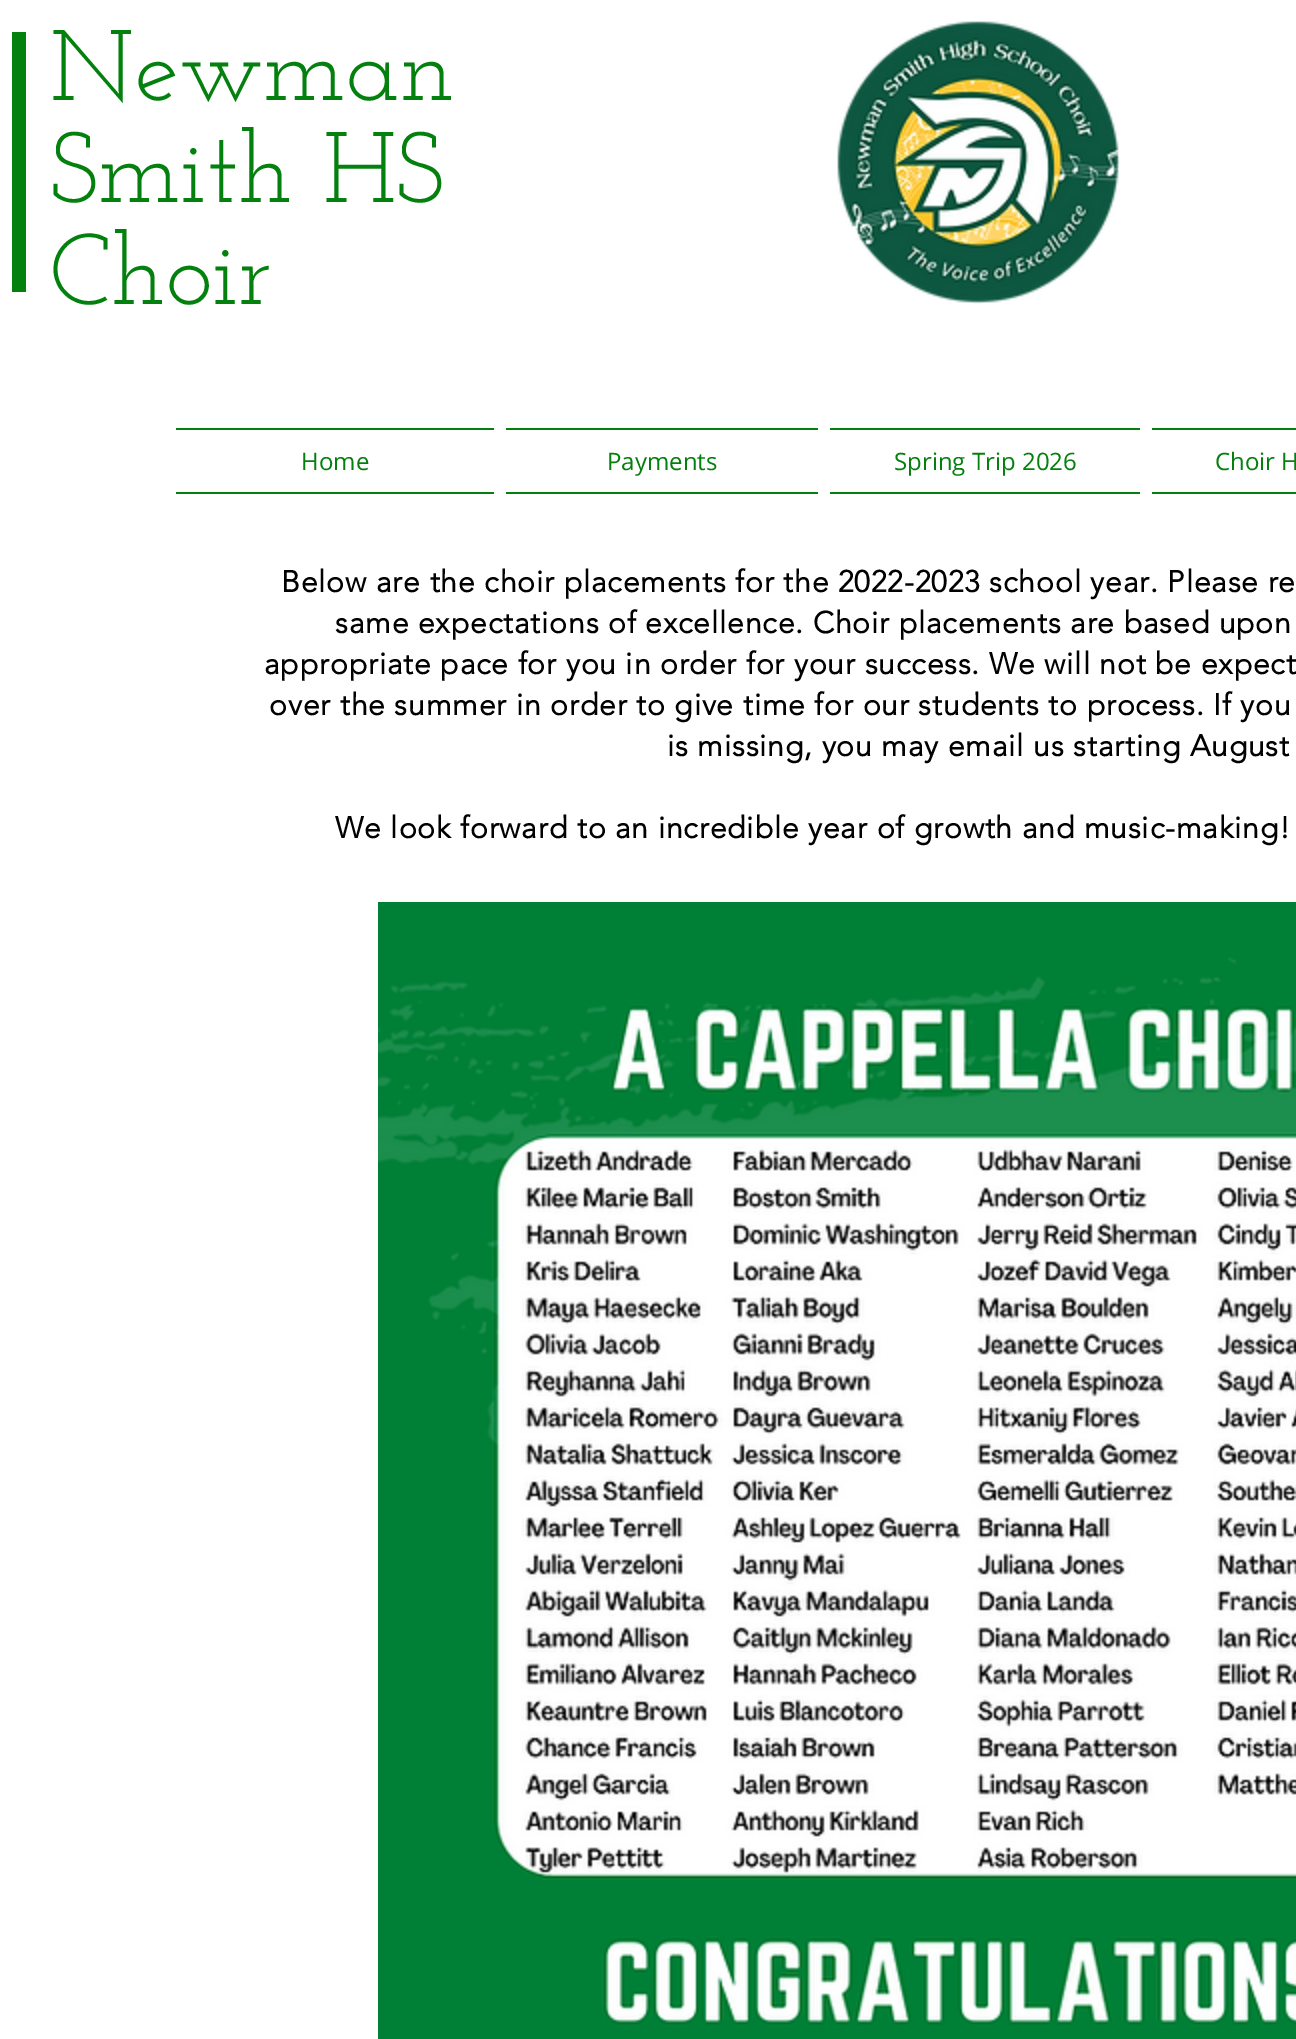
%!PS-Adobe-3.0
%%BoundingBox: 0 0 1296 2039
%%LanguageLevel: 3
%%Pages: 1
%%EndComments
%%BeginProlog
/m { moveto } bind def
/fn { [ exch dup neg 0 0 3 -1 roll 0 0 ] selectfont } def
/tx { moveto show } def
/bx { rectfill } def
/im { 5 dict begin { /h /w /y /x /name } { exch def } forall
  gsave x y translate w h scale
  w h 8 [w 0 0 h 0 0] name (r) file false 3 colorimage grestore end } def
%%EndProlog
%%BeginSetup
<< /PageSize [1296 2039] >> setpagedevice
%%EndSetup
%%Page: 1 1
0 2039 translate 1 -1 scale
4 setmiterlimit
1 setgray
0 0 1296 2039 bx
0.012 0.502 0.051 setrgbcolor
12 32 14 260 bx
/JosefinSlab-Regular 100 fn
(Newman) 50 100 tx
(Smith HS) 50 202 tx
(Choir) 50 304 tx
(image0.raw) 837 21 283 283 im
176 428 318 2 bx
176 492 318 2 bx
/OpenSans-Regular 24 fn
(Home) 301 470 tx
506 428 312 2 bx
506 492 312 2 bx
(Payments) 607 470 tx
830 428 310 2 bx
830 492 310 2 bx
(Spring Trip 2026) 894 470 tx
1152 428 144 2 bx
1152 492 144 2 bx
(Choir H) 1215 470 tx
/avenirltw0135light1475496-Bold 30 fn
0 setgray
281 592 m 0.9 0 (Below are the choir placements for the 2022-2023 school year. Please re) ashow
335 633 m 0.9 0 (same expectations of excellence. Choir placements are based upon) ashow
264 674 m 0.9 0 (appropriate pace for you in order for your success. We will not be expect) ashow
269 715 m 0.9 0 (over the summer in order to give time for our students to process. If you) ashow
667 756 m 0.9 0 (is missing, you may email us starting August) ashow
335 838 m 0.9 0 (We look forward to an incredible year of growth and music-making!) ashow
(image1.raw) 378 902 918 1137 im
showpage
%%EOF
